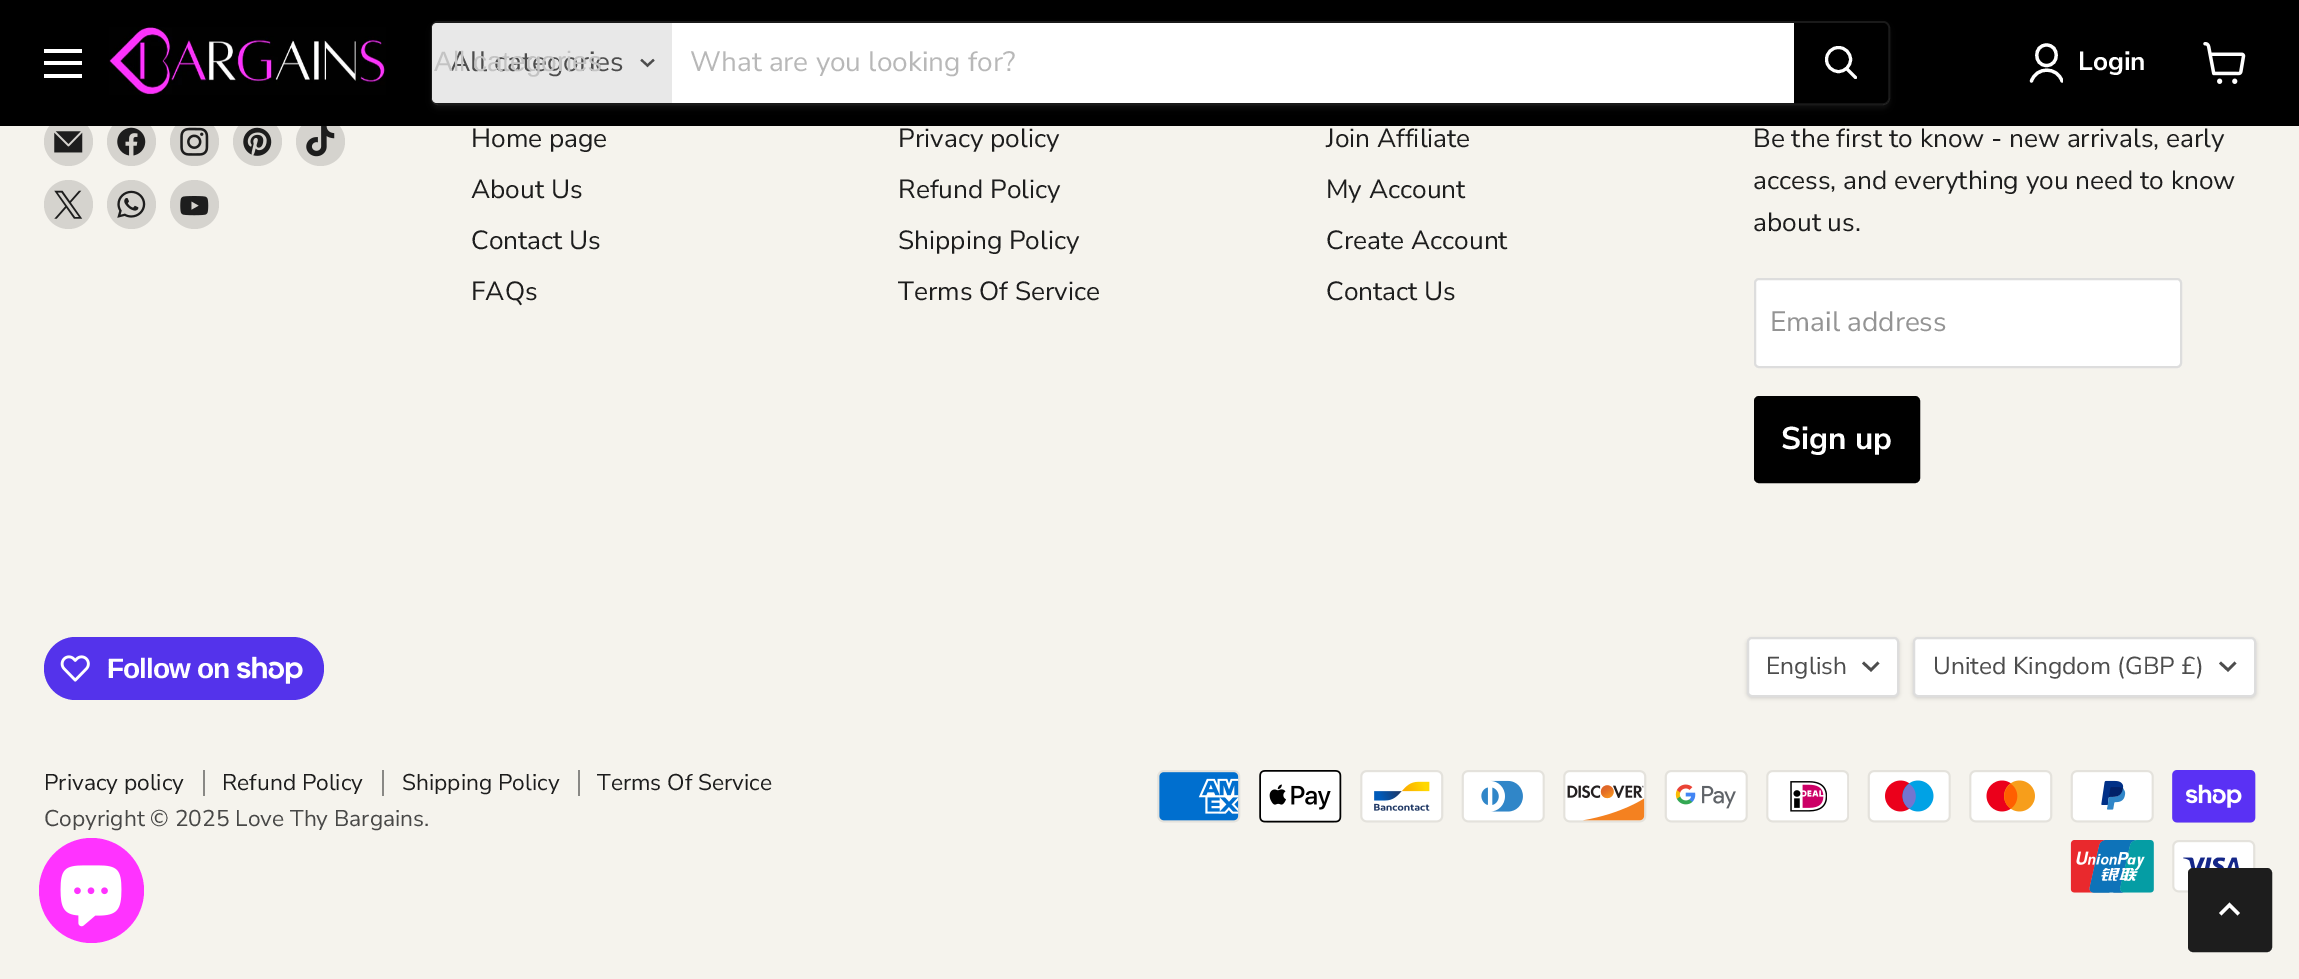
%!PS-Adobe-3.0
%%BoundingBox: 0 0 2299 979
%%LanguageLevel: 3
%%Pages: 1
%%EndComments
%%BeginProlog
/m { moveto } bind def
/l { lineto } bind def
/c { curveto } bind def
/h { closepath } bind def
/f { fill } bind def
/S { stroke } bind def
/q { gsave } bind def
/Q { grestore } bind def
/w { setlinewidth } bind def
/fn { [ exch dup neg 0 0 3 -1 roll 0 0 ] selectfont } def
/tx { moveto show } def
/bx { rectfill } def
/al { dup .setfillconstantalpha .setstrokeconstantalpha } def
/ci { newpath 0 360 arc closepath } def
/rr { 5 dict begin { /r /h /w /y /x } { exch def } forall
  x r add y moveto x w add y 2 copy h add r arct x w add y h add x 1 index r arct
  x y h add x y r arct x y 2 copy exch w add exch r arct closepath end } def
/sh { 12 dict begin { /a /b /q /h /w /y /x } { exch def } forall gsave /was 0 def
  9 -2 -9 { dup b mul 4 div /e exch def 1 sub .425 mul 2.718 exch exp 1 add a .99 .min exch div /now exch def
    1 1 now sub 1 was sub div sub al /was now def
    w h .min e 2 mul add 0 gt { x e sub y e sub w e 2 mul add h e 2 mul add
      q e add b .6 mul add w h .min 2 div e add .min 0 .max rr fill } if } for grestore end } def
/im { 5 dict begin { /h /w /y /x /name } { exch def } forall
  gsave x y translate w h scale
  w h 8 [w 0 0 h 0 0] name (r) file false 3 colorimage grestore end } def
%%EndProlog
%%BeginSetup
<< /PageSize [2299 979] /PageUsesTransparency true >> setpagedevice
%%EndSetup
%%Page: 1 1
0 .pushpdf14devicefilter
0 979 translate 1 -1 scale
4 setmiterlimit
0.961 0.953 0.929 setrgbcolor
0 0 2299 979 bx
0.835 0.827 0.808 setrgbcolor
68.5 141.5 24.5 ci f
131.5 141.5 24.5 ci f
194.5 141.5 24.5 ci f
257.5 141.5 24.5 ci f
320.5 141.5 24.5 ci f
0 setgray
0 0 2299 126 bx
1 setgray
44 49 38 4 bx
44 61 38 4 bx
44 74 38 4 bx
(image0.raw) 109 27 277 68 im
q
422 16 m 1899 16 l 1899 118 l 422 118 l h 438 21 m 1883 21 l 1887 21 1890 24 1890 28 c 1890 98 l 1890 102 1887 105 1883 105 c 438 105 l 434 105 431 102 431 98 c 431 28 l 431 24 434 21 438 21 c h eoclip newpath
0.502 setgray
431 25 1459 84 7 2.5 0.11 sh
Q
0.2 al
0.502 setgray
2 w
432 22 1457 82 6 rr S
1 al
0.91 setgray
437 23 m 672 23 l 672 103 l 437 103 l 434 103 432 101 432 98 c 432 28 l 432 25 434 23 437 23 c h f
/NunitoSans-Regular 28 fn
0.302 setgray
(All categories) 450 71 tx
/LiberationSans-Regular 28 fn
0.765 setgray
(All categories) 434 71 tx
0.302 setgray
2.2 w
2 setlinecap
647.5 65.5 m 653 60.5 l 647.5 65.5 m 642 60.5 l S
1 setgray
672 23 1122 80 bx
/NunitoSans-Regular 28 fn
0.722 setgray
(What are you looking for?) 690 71 tx
0 setgray
1795 24 m 1883 24 l 1885 24 1887 26 1887 28 c 1887 98 l 1887 100 1885 102 1883 102 c 1795 102 l h q f Q
2 w
0 setlinecap
S
1 setgray
3 w
1 setlinecap
1855.5 77.5 m 1847 69 l S
0 setlinecap
1838.5 59.5 12 ci S
3.2 w
1 setlinecap
1 setlinejoin
2046.5 65.5 m 2059.5 65.5 2059.5 45 2046.5 45 c 2033.5 45 2033.5 65.5 2046.5 65.5 c h S
q
2028 42 35 42 rectclip
2062 81 m 2057 66.5 2036.5 66.5 2031.5 81 c S
Q
/NunitoSans-Bold 26.25 fn
(Login) 2078 70 tx
(image1.raw) 2203 42 43 42 im
(image2.raw) 54 131 29 22 im
(image3.raw) 117 127 29 29 im
(image4.raw) 180 127 29 29 im
(image5.raw) 243 127 29 29 im
(image6.raw) 306 126 29 31 im
0.835 0.827 0.808 setrgbcolor
68.5 204.5 24.5 ci f
(image7.raw) 54 190 29 29 im
131.5 204.5 24.5 ci f
(image8.raw) 117 190 29 28 im
194.5 204.5 24.5 ci f
(image9.raw) 180 196 29 20 im
/NunitoSans-Regular 26.25 fn
0.114 setgray
(Home page) 471 147 tx
(About Us) 471 198 tx
(Contact Us) 471 249 tx
(FAQs) 471 300 tx
(Privacy policy) 898 147 tx
(Refund Policy) 898 198 tx
(Shipping Policy) 898 249 tx
(Terms Of Service) 898 300 tx
(Join Affiliate) 1326 147 tx
(My Account) 1326 198 tx
(Create Account) 1326 249 tx
(Contact Us) 1326 300 tx
(Be the first to know - new arrivals, early) 1753 147 tx
(access, and everything you need to know) 1753 189 tx
(about us.) 1753 231 tx
1 setgray
1755 279 426 88 4 rr q f Q
0.867 setgray
2 w
0 setlinecap
0 setlinejoin
S
/NunitoSans-Regular 28 fn
0.58 setgray
(Email address) 1770 331 tx
0 setgray
1755 397 164 85 4 rr q f Q
S
/NunitoSans-Bold 31.5 fn
1 setgray
(Sign up) 1781 449 tx
0.329 0.2 0.922 setrgbcolor
44 637 280 63 31.5 rr f
(image10.raw) 60 655 30 27 im
/LiberationSans-Bold 28 fn
1 setgray
107 678 m -0.9 0 (Follow on) ashow
(image11.raw) 237 656 66 28 im
0 setgray
1747 639 152 59 5 2 0.15 sh
1 setgray
1748 638 150 58 4 rr q f Q
0.867 setgray
S
/NunitoSans-Regular 24.5 fn
0.302 setgray
(English) 1766 674 tx
2.7 w
2 setlinecap
1871 670 m 1877.5 663.5 l 1871 670 m 1864 663.5 l S
0 setgray
1913 639 343 59 5 2 0.15 sh
1 setgray
1914 638 341 58 4 rr q f Q
0.867 setgray
2 w
0 setlinecap
S
0.302 setgray
(United Kingdom \(GBP £\)) 1933 674 tx
2.7 w
2 setlinecap
2228 670 m 2234.5 663.5 l 2228 670 m 2221 663.5 l S
0.537 0.533 0.522 setrgbcolor
203 770 2 26 bx
/NunitoSans-Regular 22.75 fn
0.114 setgray
(Privacy policy) 44 790 tx
0.537 0.533 0.522 setrgbcolor
382 770 2 26 bx
0.114 setgray
(Refund Policy) 222 790 tx
0.537 0.533 0.522 setrgbcolor
578 770 2 26 bx
0.114 setgray
(Shipping Policy) 402 790 tx
(Terms Of Service) 597 790 tx
0.282 0.282 0.278 setrgbcolor
(Copyright © 2025 Love Thy Bargains.) 44 826 tx
(image12.raw) 1157 770 84 53 im
(image13.raw) 1259 770 83 53 im
(image14.raw) 1360 770 84 53 im
(image15.raw) 1461 770 84 53 im
(image16.raw) 1563 770 84 53 im
(image17.raw) 1664 770 84 53 im
(image18.raw) 1766 770 83 53 im
(image19.raw) 1867 770 84 53 im
(image20.raw) 1969 770 84 53 im
(image21.raw) 2070 770 84 53 im
(image22.raw) 2172 770 84 53 im
(image23.raw) 2070 840 84 53 im
(image24.raw) 2172 840 84 53 im
1 0.2 1 setrgbcolor
91.5 890.5 52.5 ci f
(image25.raw) 60 865 62 62 im
0.114 setgray
2189 869 82 82 4 rr q f Q
2 w
0 setlinecap
S
1 setgray
3.3 w
2 setlinecap
2229.5 905 m 2221.5 913 l 2229.5 905 m 2237.5 913 l S
.poppdf14devicefilter showpage
%%EOF
